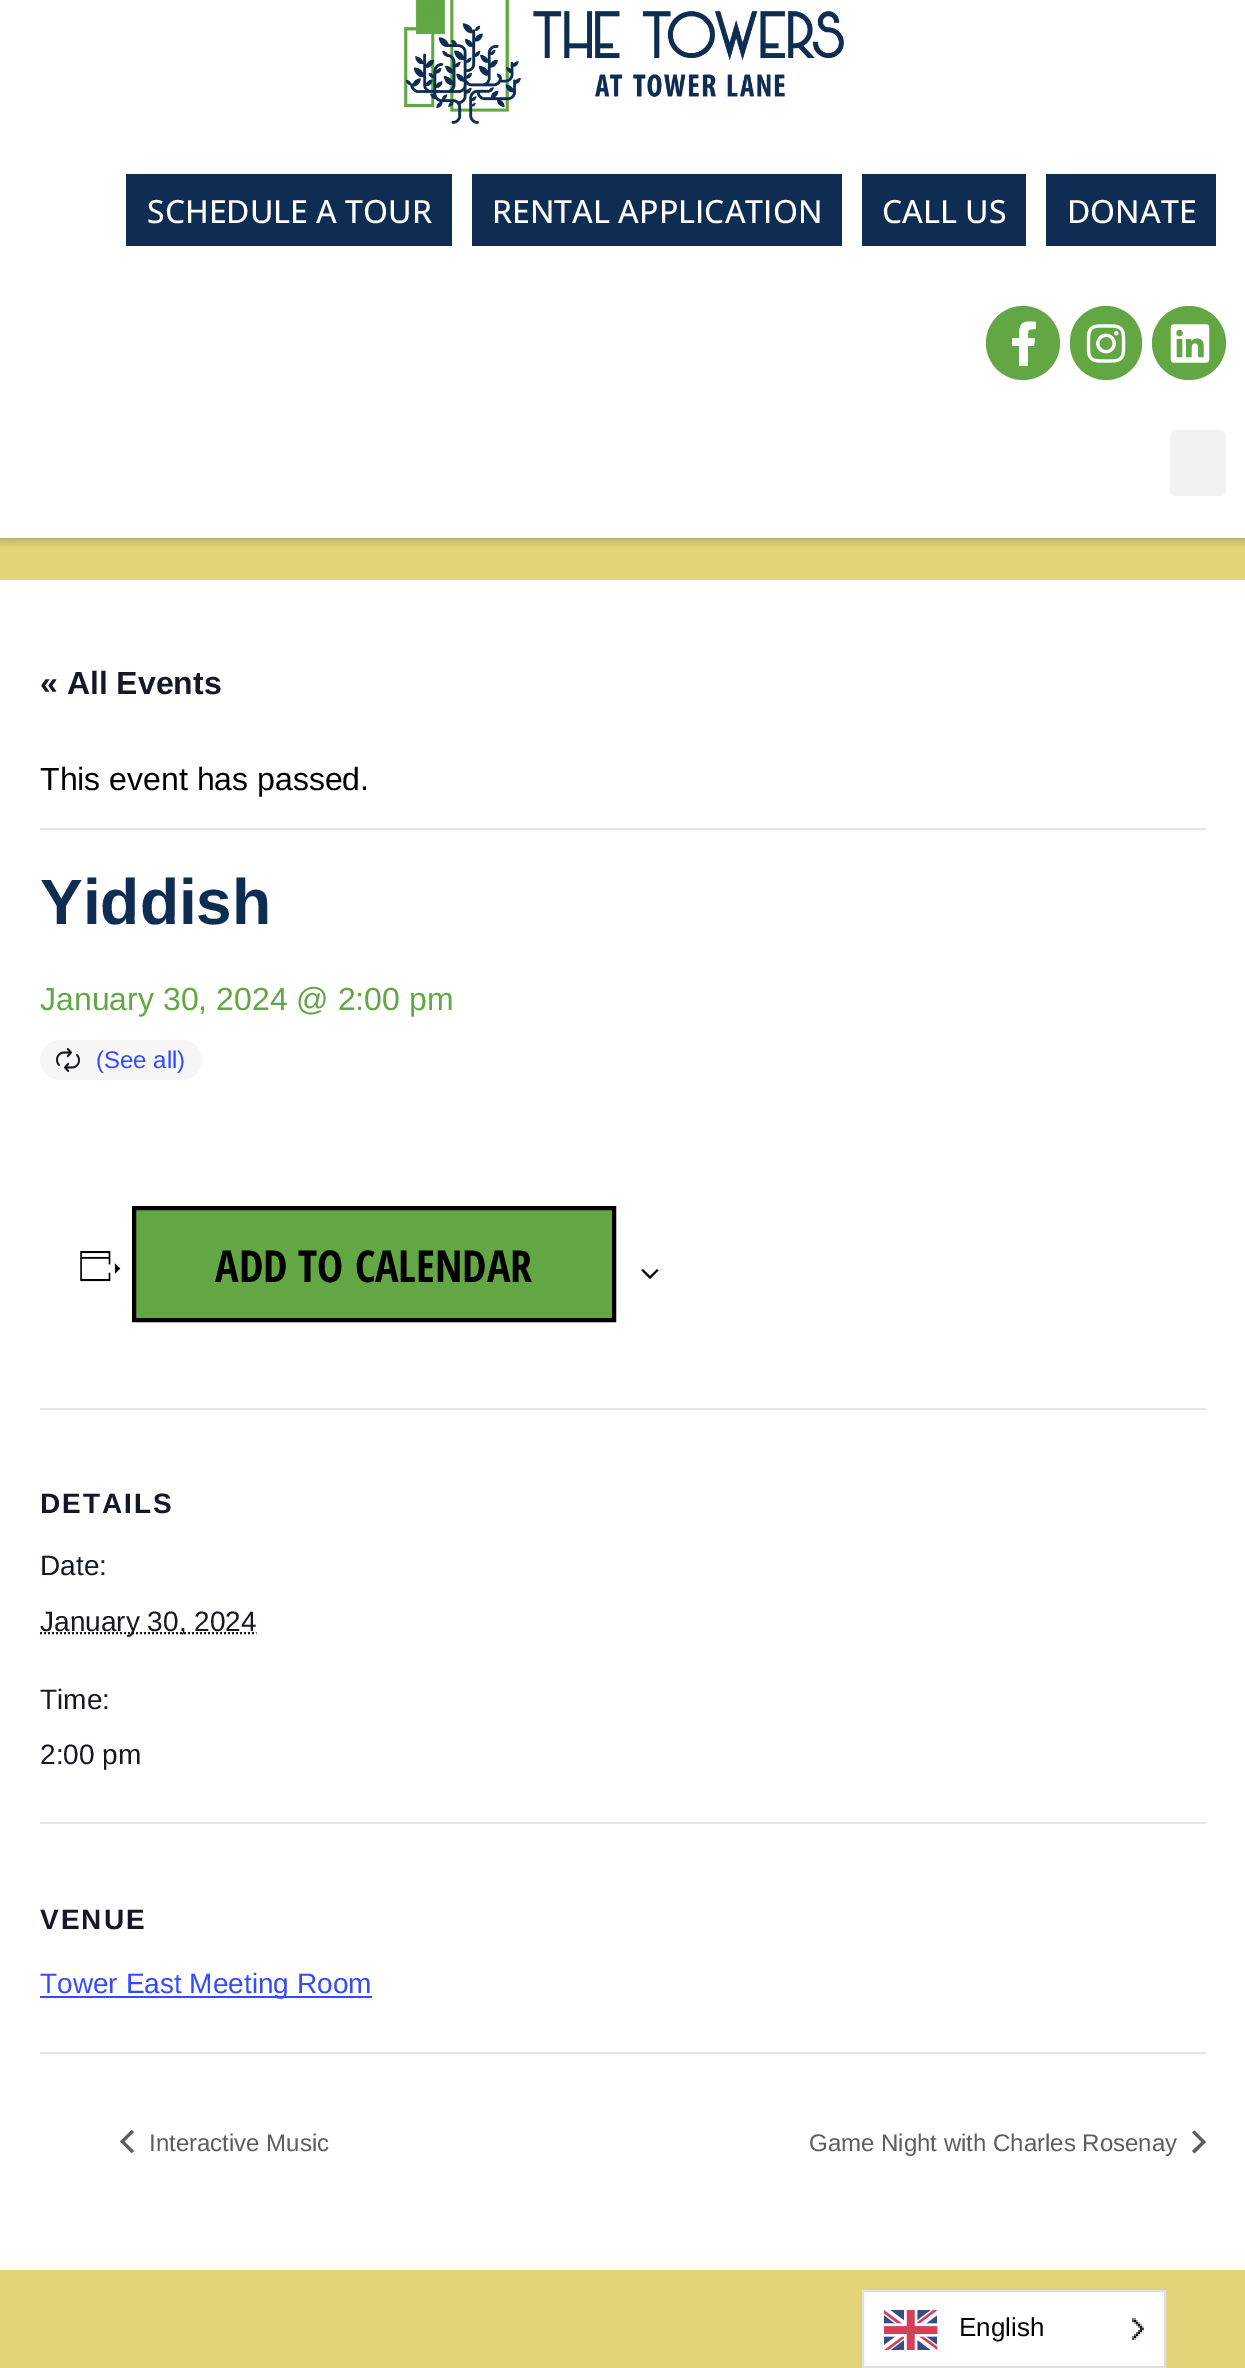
%!PS-Adobe-3.0
%%BoundingBox: 0 0 1245 2368
%%LanguageLevel: 3
%%Pages: 1
%%EndComments
%%BeginProlog
/m { moveto } bind def
/l { lineto } bind def
/c { curveto } bind def
/h { closepath } bind def
/f { fill } bind def
/S { stroke } bind def
/q { gsave } bind def
/Q { grestore } bind def
/w { setlinewidth } bind def
/fn { [ exch dup neg 0 0 3 -1 roll 0 0 ] selectfont } def
/tx { moveto show } def
/bx { rectfill } def
/al { dup .setfillconstantalpha .setstrokeconstantalpha } def
/ci { newpath 0 360 arc closepath } def
/rr { 5 dict begin { /r /h /w /y /x } { exch def } forall
  x r add y moveto x w add y 2 copy h add r arct x w add y h add x 1 index r arct
  x y h add x y r arct x y 2 copy exch w add exch r arct closepath end } def
/sh { 12 dict begin { /a /b /q /h /w /y /x } { exch def } forall gsave /was 0 def
  9 -2 -9 { dup b mul 4 div /e exch def 1 sub .425 mul 2.718 exch exp 1 add a .99 .min exch div /now exch def
    1 1 now sub 1 was sub div sub al /was now def
    w h .min e 2 mul add 0 gt { x e sub y e sub w e 2 mul add h e 2 mul add
      q e add b .6 mul add w h .min 2 div e add .min 0 .max rr fill } if } for grestore end } def
/im { 5 dict begin { /h /w /y /x /name } { exch def } forall
  gsave x y translate w h scale
  w h 8 [w 0 0 h 0 0] name (r) file false 3 colorimage grestore end } def
%%EndProlog
%%BeginSetup
<< /PageSize [1245 2368] /PageUsesTransparency true >> setpagedevice
%%EndSetup
%%Page: 1 1
0 .pushpdf14devicefilter
0 2368 translate 1 -1 scale
4 setmiterlimit
1 setgray
0 0 1245 2368 bx
0.878 0.827 0.471 setrgbcolor
0 538 1245 42 bx
q
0 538 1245 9 rectclip
0 setgray
0 410 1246 128 0 6 0.33 sh
Q
1 setgray
0 399 1245 11 bx
(image0.raw) 404 0 440 124 im
0.059 0.176 0.322 setrgbcolor
126 174 326 72 bx
/OpenSans-Medium 32 fn
1 setgray
(SCHEDULE A TOUR) 147 223 tx
0.059 0.176 0.322 setrgbcolor
472 174 370 72 bx
1 setgray
(RENTAL APPLICATION) 492 223 tx
0.059 0.176 0.322 setrgbcolor
862 174 164 72 bx
1 setgray
(CALL US) 882 223 tx
0.059 0.176 0.322 setrgbcolor
1046 174 170 72 bx
1 setgray
(DONATE) 1067 223 tx
0.384 0.655 0.267 setrgbcolor
1023 343 37 ci f
1 setgray
1034 346 m 1028 346 l 1028 366 l 1019 366 l 1019 346 l 1012 346 l 1012 338 l 1019 338 l 1019 324 1021 320 1036 322 c 1036 329 l 1027 329 1028 330 1028 338 c 1035 338 l h f
0.384 0.655 0.267 setrgbcolor
1070 306 72 74 36 rr f
(image1.raw) 1086 324 40 39 im
1189 343 37 ci f
(image2.raw) 1170 324 40 39 im
0.949 setgray
1170 430 56 66 6 rr f
/LiberationSans-Bold 32 fn
0.078 0.094 0.153 setrgbcolor
(« All Events) 40 694 tx
0.894 setgray
40 828 1166 2 bx
/LiberationSans-Regular 32 fn
0 setgray
(This event has passed.) 40 790 tx
/LiberationSans-Bold 64 fn
0.059 0.176 0.322 setrgbcolor
(Yiddish) 40 924 tx
/LiberationSans-Regular 32 fn
0.384 0.655 0.267 setrgbcolor
(January 30, 2024 @ 2:00 pm) 40 1010 tx
0.969 0.965 0.965 setrgbcolor
40 1040 162 40 20 rr f
(image3.raw) 56 1048 24 24 im
/LiberationSans-Regular 24 fn
0.2 0.29 1 setrgbcolor
(\(See all\)) 96 1068 tx
(image4.raw) 80 1251 41 31 im
0.384 0.655 0.267 setrgbcolor
134 1208 m 614 1208 l 614 1320 l 134 1320 l h q f Q
0 setgray
4 w
S
/OpenSansCondensed-Bold 44 fn
(ADD TO CALENDAR) 215 1282 tx
643 1269 m 650 1276 l 657 1269 l 658.5 1270.5 l 650 1279 l 641.5 1270.5 l h eofill
0.894 setgray
40 1408 1166 2 bx
/LiberationSans-Bold 28 fn
0.078 0.094 0.153 setrgbcolor
40 1513 m 2 0 (DETAILS) ashow
/LiberationSans-Regular 28 fn
(Date:) 40 1575 tx
2 w
[2 2] 0 setdash
40 1633 m 256.5 1633 l S
(January 30, 2024) 40 1631 tx
(Time:) 40 1709 tx
(2:00 pm) 40 1764 tx
0.894 setgray
40 1822 1166 2 bx
/LiberationSans-Bold 28 fn
0.078 0.094 0.153 setrgbcolor
40 1929 m 2 0 (VENUE) ashow
0.2 0.29 1 setrgbcolor
40 1996 332 2 bx
/LiberationSans-Regular 28 fn
(Tower East Meeting Room) 40 1993 tx
0.894 setgray
40 2052 1166 2 bx
0.365 setgray
134 2151 m 131.5 2153 l 120 2141.5 l 131.5 2130 l 134 2132 l 124.5 2141.5 l h f
/LiberationSans-Regular 24 fn
(Interactive Music) 149 2151 tx
(Game Night with Charles Rosenay) 809 2151 tx
1192 2132.5 m 1194.5 2130.5 l 1206 2142 l 1194.5 2153.5 l 1192 2151 l 1201.5 2142 l h f
0.878 0.827 0.471 setrgbcolor
0 2270 1245 98 bx
1 setgray
863 2291 m 1165 2291 l 1165 2367 l 863 2367 l h q f Q
0.878 setgray
[] 0 setdash
S
(image5.raw) 884 2310 54 40 im
/LiberationSans-Regular 26 fn
0 setgray
(English) 959 2336 tx
(image6.raw) 1132 2318 12 22 im
.poppdf14devicefilter showpage
%%EOF
